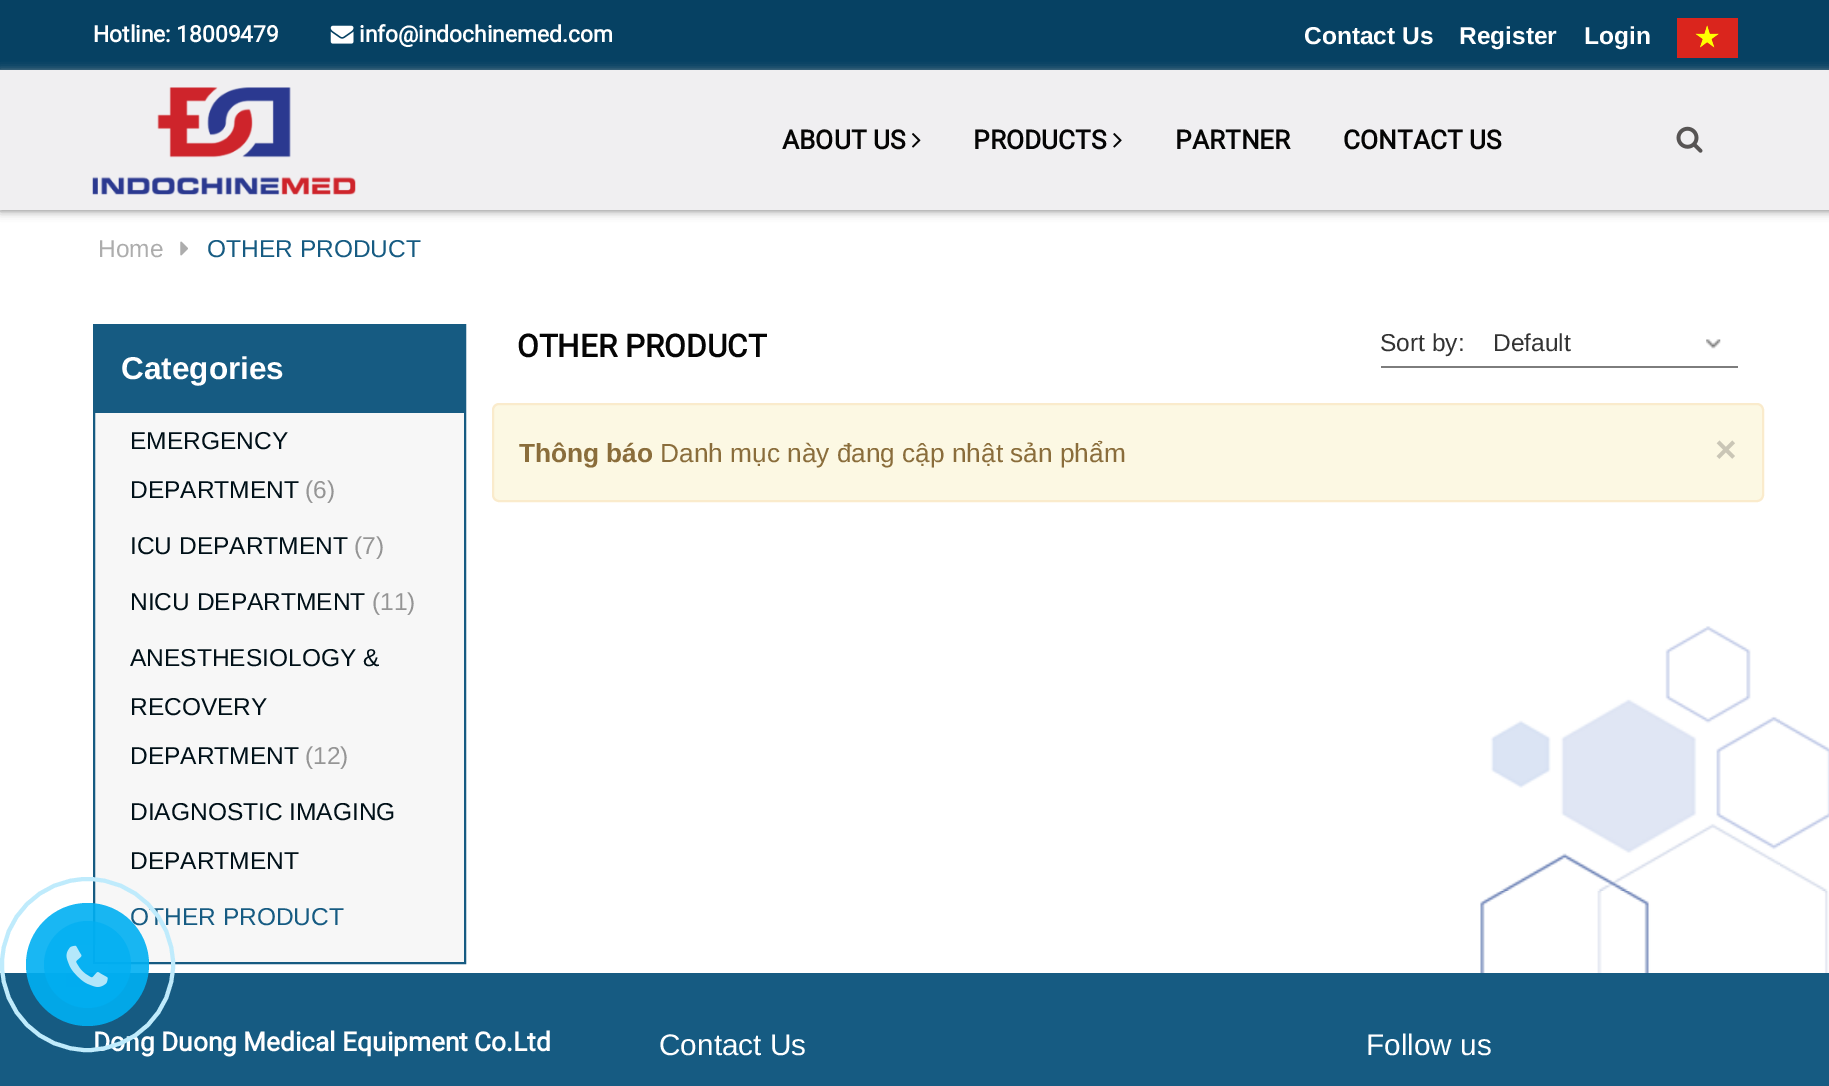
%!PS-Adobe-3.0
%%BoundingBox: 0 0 1829 1086
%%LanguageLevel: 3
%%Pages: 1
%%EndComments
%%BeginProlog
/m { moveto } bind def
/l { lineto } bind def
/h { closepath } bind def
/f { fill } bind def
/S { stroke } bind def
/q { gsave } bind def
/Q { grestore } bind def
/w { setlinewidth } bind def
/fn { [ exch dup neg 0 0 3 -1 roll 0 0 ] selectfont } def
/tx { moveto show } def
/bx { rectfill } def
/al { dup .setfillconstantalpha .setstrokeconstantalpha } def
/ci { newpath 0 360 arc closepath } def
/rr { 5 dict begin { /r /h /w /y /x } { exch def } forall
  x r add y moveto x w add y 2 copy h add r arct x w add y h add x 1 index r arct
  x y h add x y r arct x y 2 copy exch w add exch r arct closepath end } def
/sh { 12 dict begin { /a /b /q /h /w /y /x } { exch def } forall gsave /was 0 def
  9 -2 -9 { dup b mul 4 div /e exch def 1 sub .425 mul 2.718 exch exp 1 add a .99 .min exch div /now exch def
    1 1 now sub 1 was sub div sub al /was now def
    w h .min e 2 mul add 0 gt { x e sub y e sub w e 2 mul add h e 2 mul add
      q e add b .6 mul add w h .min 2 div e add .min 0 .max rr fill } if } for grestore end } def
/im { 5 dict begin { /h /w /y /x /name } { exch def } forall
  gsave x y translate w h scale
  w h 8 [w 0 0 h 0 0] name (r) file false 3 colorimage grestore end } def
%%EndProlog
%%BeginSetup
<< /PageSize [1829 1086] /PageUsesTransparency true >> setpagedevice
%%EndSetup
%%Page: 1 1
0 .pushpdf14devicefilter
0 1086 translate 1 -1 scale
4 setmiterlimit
1 setgray
0 0 1829 1086 bx
(image0.raw) 1480 626 349 347 im
0.941 0.937 0.945 setrgbcolor
0 70 1829 140 bx
0.922 setgray
0 210 1829 2 bx
0.024 0.255 0.388 setrgbcolor
0 0 1829 70 bx
/Roboto-Bold 22.75 fn
1 setgray
(Hotline: 18009479) 93 42 tx
(image1.raw) 330 25 24 19 im
(info@indochinemed.com) 359 42 tx
/LiberationSans-Bold 24.5 fn
(Contact Us) 1304 44 tx
(Register) 1459 44 tx
(Login) 1584 44 tx
(image2.raw) 1677 18 61 40 im
q
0 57 m 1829 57 l 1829 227 l 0 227 l h 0 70 m 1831 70 l 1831 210 l 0 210 l h eoclip newpath
0.651 setgray
0 72 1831 140 0 4.5 1 sh
Q
(image3.raw) 92 87 264 108 im
/Roboto-Bold 26.25 fn
0.02 setgray
(ABOUT US) 782 149 tx
(image4.raw) 912 133 9 15 im
(PRODUCTS) 973 149 tx
(image5.raw) 1113 133 9 15 im
(PARTNER) 1175 149 tx
(CONTACT US) 1343 149 tx
(image6.raw) 1676 126 27 27 im
/LiberationSans-Regular 24.5 fn
0.678 setgray
(Home) 98 257 tx
(image7.raw) 180 241 8 15 im
0.086 0.357 0.51 setrgbcolor
(OTHER PRODUCT) 207 257 tx
0.969 setgray
95 413 369 549 bx
0.086 0.357 0.51 setrgbcolor
2 w
94 325 371 638 rectstroke
95 326 369 87 bx
/LiberationSans-Bold 31.5 fn
1 setgray
(Categories) 121 379 tx
/LiberationSans-Regular 24.5 fn
0 0.063 0.094 setrgbcolor
(EMERGENCY) 130 449 tx
(DEPARTMENT) 130 498 tx
0.584 setgray
(\(6\)) 305 498 tx
0 0.063 0.094 setrgbcolor
(ICU DEPARTMENT) 130 554 tx
0.584 setgray
(\(7\)) 354 554 tx
0 0.063 0.094 setrgbcolor
(NICU DEPARTMENT) 130 610 tx
0.584 setgray
(\(11\)) 372 610 tx
0 0.063 0.094 setrgbcolor
(ANESTHESIOLOGY &) 130 666 tx
(RECOVERY) 130 715 tx
(DEPARTMENT) 130 764 tx
0.584 setgray
(\(12\)) 305 764 tx
0 0.063 0.094 setrgbcolor
(DIAGNOSTIC IMAGING) 130 820 tx
(DEPARTMENT) 130 869 tx
0.086 0.357 0.51 setrgbcolor
(OTHER PRODUCT) 130 925 tx
0.2 setgray
(Sort by:) 1380 351 tx
(image8.raw) 1706 339 15 10 im
(Default) 1493 351 tx
0.49 setgray
1381 366 357 2 bx
0.988 0.973 0.89 setrgbcolor
493 404 1270 97 6 rr q f Q
0.98 0.922 0.8 setrgbcolor
S
/LiberationSans-Bold 26.25 fn
0.541 0.427 0.231 setrgbcolor
(Thông báo) 519 462 tx
/LiberationSans-Regular 26.25 fn
(Danh mục này đang cập nhật sản phẩm) 660 462 tx
/LiberationSans-Bold 37 fn
0.792 0.776 0.714 setrgbcolor
(×) 1715 462 tx
/Roboto-Bold 31.5 fn
0.02 setgray
(OTHER PRODUCT) 517 357 tx
0.086 0.357 0.51 setrgbcolor
0 973 1829 113 bx
/Roboto-Bold 26.25 fn
1 setgray
(Dong Duong Medical Equipment Co.Ltd) 93 1051 tx
0.749 0.922 0.988 setrgbcolor
4 w
87.5 964.5 85.5 ci S
0.9 al
0 0.686 0.949 setrgbcolor
87.5 964.5 61.5 ci f
0.7 al
87.5 964.5 43.5 ci f
1 al
(image9.raw) 66 945 42 42 im
/LiberationSans-Regular 29.75 fn
1 setgray
(Contact Us) 659 1055 tx
(Follow us) 1366 1055 tx
.poppdf14devicefilter showpage
%%EOF
